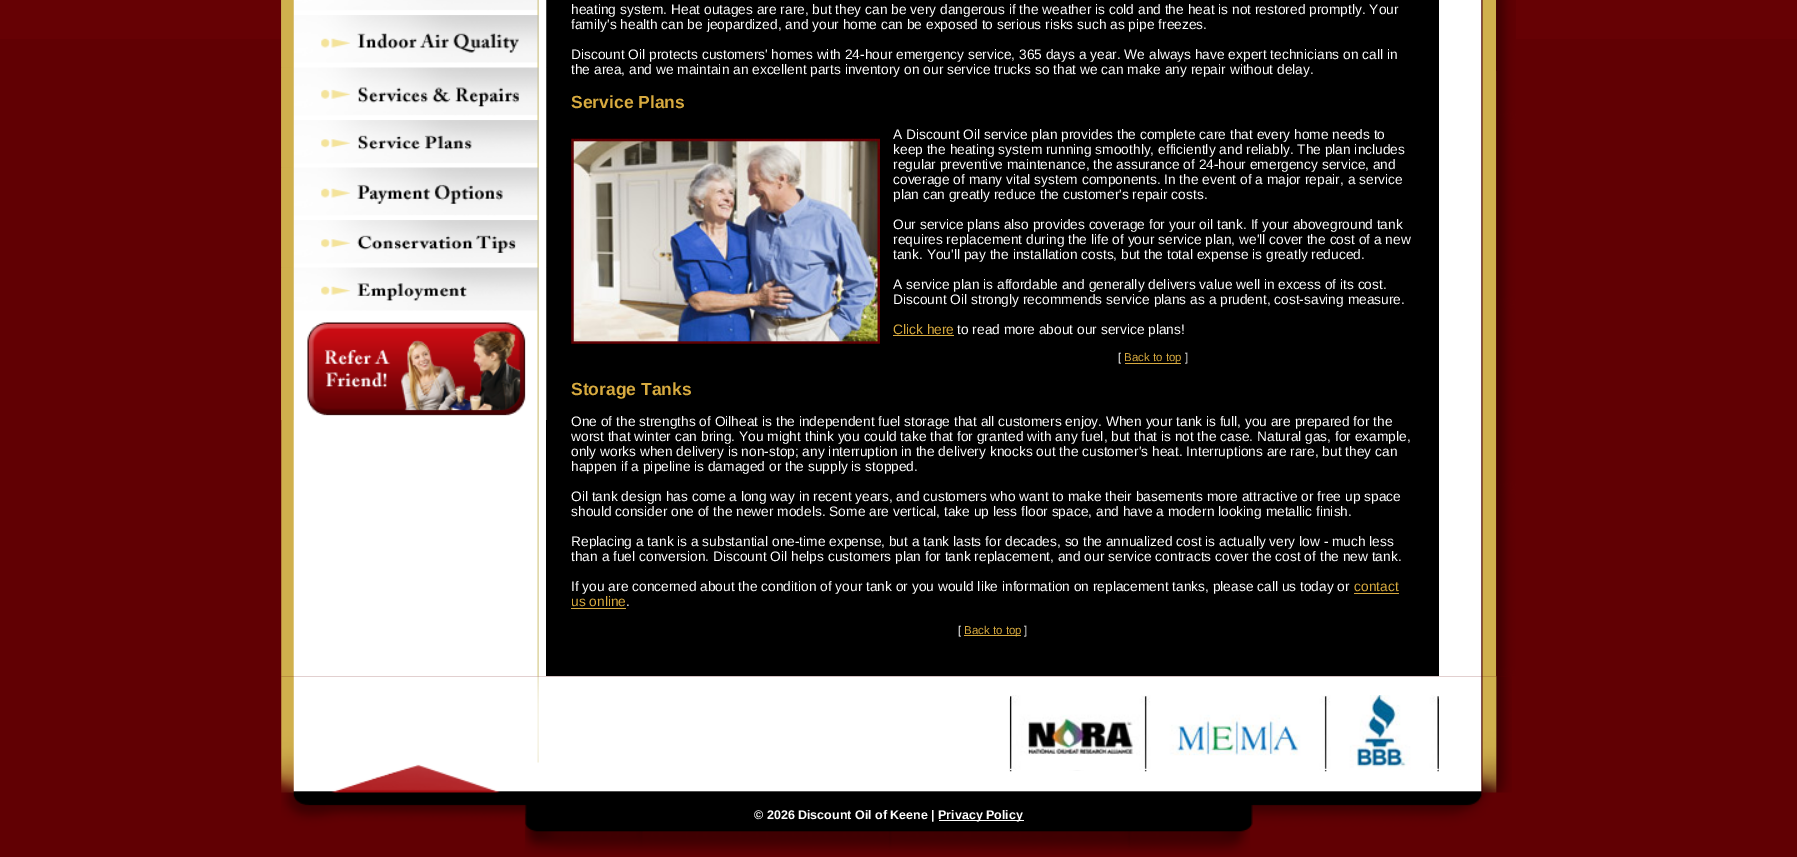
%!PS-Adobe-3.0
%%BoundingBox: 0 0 1797 857
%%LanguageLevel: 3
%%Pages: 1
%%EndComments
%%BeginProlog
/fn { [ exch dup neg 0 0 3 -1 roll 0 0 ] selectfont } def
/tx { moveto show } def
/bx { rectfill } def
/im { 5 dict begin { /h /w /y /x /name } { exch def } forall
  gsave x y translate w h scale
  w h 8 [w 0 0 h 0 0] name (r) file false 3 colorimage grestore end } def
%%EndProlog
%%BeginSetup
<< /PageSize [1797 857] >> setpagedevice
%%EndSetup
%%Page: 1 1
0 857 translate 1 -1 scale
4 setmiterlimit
0.38 0 0.012 setrgbcolor
0 0 1797 857 bx
0.4 0.004 0.016 setrgbcolor
0 0 1797 39 bx
(image0.raw) 281 0 266 677 im
(image9.raw) 546 0 951 677 im
0 setgray
546 0 893 676 bx
(image1.raw) 281 0 266 15 im
(image2.raw) 281 15 266 53 im
(image3.raw) 281 67 266 53 im
(image4.raw) 281 120 266 48 im
(image5.raw) 281 167 266 53 im
(image6.raw) 281 220 266 48 im
(image7.raw) 281 267 266 48 im
(image8.raw) 281 315 266 105 im
/LiberationSans-Regular 13.75 fn
1 setgray
(heating system. Heat outages are rare, but they can be very dangerous if the weather is cold and the heat is not restored promptly. Your) 571 14 tx
(family's health can be jeopardized, and your home can be exposed to serious risks such as pipe freezes.) 571 29 tx
(Discount Oil protects customers' homes with 24-hour emergency service, 365 days a year. We always have expert technicians on call in) 571 59 tx
(the area, and we maintain an excellent parts inventory on our service trucks so that we can make any repair without delay.) 571 74 tx
/LiberationSans-Bold 17.5 fn
0.843 0.667 0.247 setrgbcolor
(Service Plans) 571 108 tx
/LiberationSans-Regular 13.75 fn
1 setgray
(A Discount Oil service plan provides the complete care that every home needs to) 893 139 tx
(image10.raw) 571 138 309 206 im
(keep the heating system running smoothly, efficiently and reliably. The plan includes) 893 154 tx
(regular preventive maintenance, the assurance of 24-hour emergency service, and) 893 169 tx
(coverage of many vital system components. In the event of a major repair, a service) 893 184 tx
(plan can greatly reduce the customer's repair costs.) 893 199 tx
(Our service plans also provides coverage for your oil tank. If your aboveground tank) 893 229 tx
(requires replacement during the life of your service plan, we'll cover the cost of a new) 893 244 tx
(tank. You'll pay the installation costs, but the total expense is greatly reduced.) 893 259 tx
(A service plan is affordable and generally delivers value well in excess of its cost.) 893 289 tx
(Discount Oil strongly recommends service plans as a prudent, cost-saving measure.) 893 304 tx
0.843 0.667 0.247 setrgbcolor
(Click here) 893 334 tx
893 335 61 1 bx
1 setgray
(to read more about our service plans!) 957 334 tx
/LiberationSans-Regular 11.5 fn
([) 1118 361 tx
0.843 0.667 0.247 setrgbcolor
1125 363 56 1 bx
(Back to top) 1124 361 tx
1 setgray
(]) 1185 361 tx
/LiberationSans-Bold 17.5 fn
0.843 0.667 0.247 setrgbcolor
(Storage Tanks) 571 395 tx
/LiberationSans-Regular 13.75 fn
1 setgray
(One of the strengths of Oilheat is the independent fuel storage that all customers enjoy. When your tank is full, you are prepared for the) 571 426 tx
(worst that winter can bring. You might think you could take that for granted with any fuel, but that is not the case. Natural gas, for example,) 571 441 tx
(only works when delivery is non-stop; any interruption in the delivery knocks out the customer's heat. Interruptions are rare, but they can) 571 456 tx
(happen if a pipeline is damaged or the supply is stopped.) 571 471 tx
(Oil tank design has come a long way in recent years, and customers who want to make their basements more attractive or free up space) 571 501 tx
(should consider one of the newer models. Some are vertical, take up less floor space, and have a modern looking metallic finish.) 571 516 tx
(Replacing a tank is a substantial one-time expense, but a tank lasts for decades, so the annualized cost is actually very low - much less) 571 546 tx
(than a fuel conversion. Discount Oil helps customers plan for tank replacement, and our service contracts cover the cost of the new tank.) 571 561 tx
(If you are concerned about the condition of your tank or you would like information on replacement tanks, please call us today or) 571 591 tx
0.843 0.667 0.247 setrgbcolor
(contact) 1354 591 tx
1354 593 45 1 bx
(us online) 571 606 tx
571 608 55 1 bx
1 setgray
(.) 626 606 tx
/LiberationSans-Regular 11.5 fn
([) 958 634 tx
0.843 0.667 0.247 setrgbcolor
964 635 57 1 bx
(Back to top) 964 634 tx
1 setgray
(]) 1024 634 tx
(image11.raw) 1496 0 20 677 im
0.271 0.012 0.012 setrgbcolor
1496 0 1 71 bx
(image12.raw) 281 676 1231 179 im
(image13.raw) 1010 695 429 75 im
/LiberationSans-Bold 12.5 fn
1 setgray
(© 2026 Discount Oil of Keene |) 754 819 tx
939 820 85 1 bx
(Privacy Policy) 938 819 tx
showpage
%%EOF
